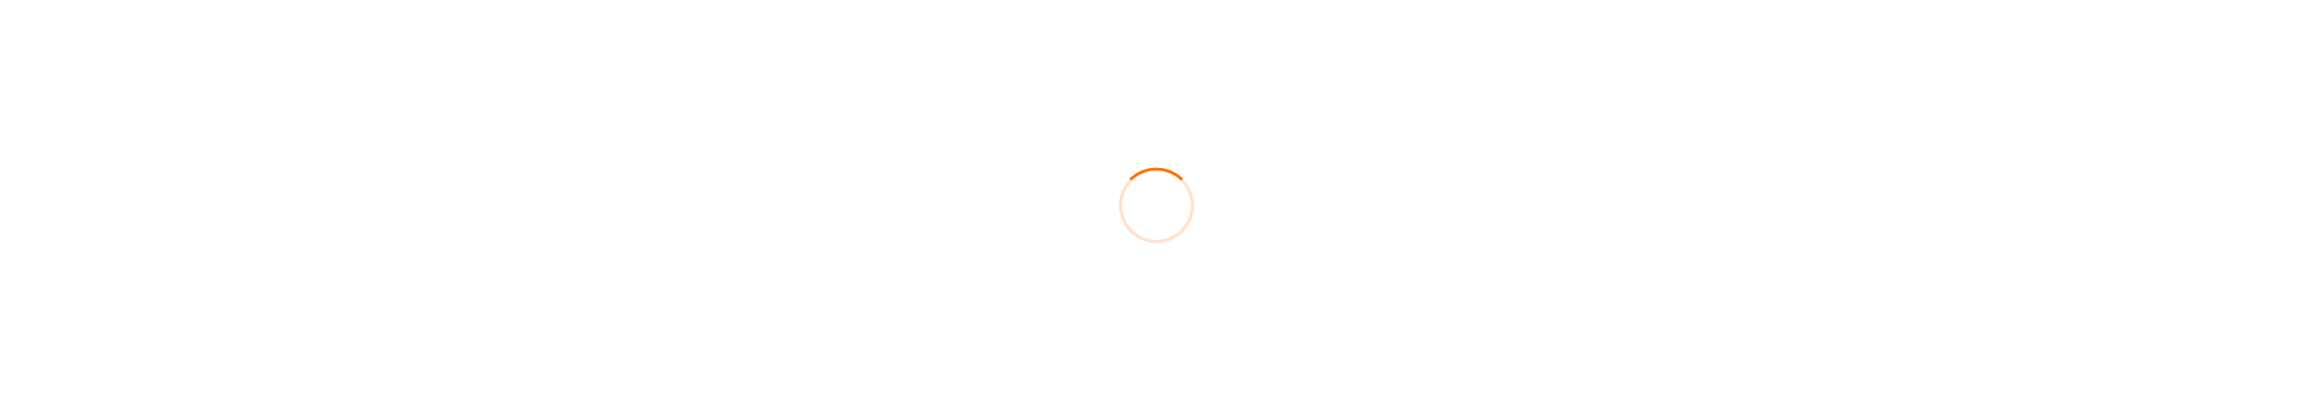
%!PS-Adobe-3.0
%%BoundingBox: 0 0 2311 409
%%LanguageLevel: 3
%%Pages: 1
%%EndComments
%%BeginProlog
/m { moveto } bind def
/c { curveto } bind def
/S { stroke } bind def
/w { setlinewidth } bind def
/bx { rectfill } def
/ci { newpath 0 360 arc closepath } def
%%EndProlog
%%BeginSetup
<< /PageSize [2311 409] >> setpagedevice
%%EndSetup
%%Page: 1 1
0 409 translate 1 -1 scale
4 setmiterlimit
1 setgray
0 0 2311 409 bx
1 0.89 0.8 setrgbcolor
3 w
1156.5 205.5 36 ci S
1 0.451 0 setrgbcolor
2.5 w
1130.5 179.5 m 1144.5 165.5 1168 165.5 1182 179.5 c S
showpage
%%EOF
